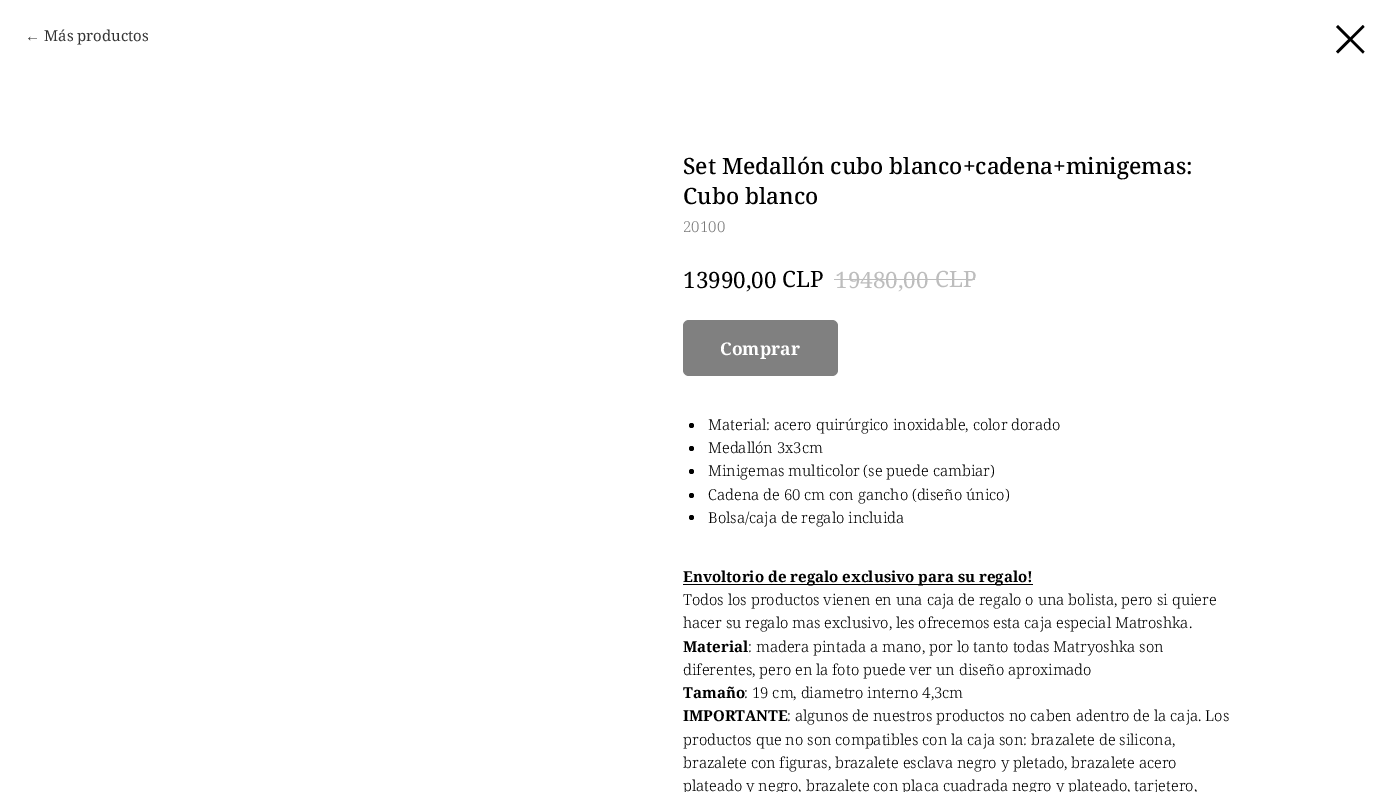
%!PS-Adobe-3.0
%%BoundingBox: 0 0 1390 792
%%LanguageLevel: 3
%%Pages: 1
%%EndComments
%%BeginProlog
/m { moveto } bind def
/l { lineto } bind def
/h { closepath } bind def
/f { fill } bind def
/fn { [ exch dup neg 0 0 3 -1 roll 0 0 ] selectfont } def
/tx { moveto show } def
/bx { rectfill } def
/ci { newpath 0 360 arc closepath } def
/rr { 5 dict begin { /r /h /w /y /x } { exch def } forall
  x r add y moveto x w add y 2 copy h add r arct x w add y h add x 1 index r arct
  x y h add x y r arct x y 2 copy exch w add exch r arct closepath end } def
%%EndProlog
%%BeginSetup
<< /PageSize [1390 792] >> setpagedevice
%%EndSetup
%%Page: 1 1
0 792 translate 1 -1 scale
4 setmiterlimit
1 setgray
0 0 1390 792 bx
/LiberationSans-Regular 15 fn
0.2 setgray
(←) 25 41 tx
/NotoSerif-Regular 15 fn
(Más productos) 44 41 tx
0 setgray
1336 27 m 1338 25 l 1364.5 51.5 l 1363 53.5 l h eofill
1363 25 m 1364.5 27 l 1338 53.5 l 1336 51.5 l h eofill
/NotoSerif-Medium 22.5 fn
(Set Medallón cubo blanco+cadena+minigemas:) 683 174 tx
(Cubo blanco) 683 204 tx
/NotoSerif-Light 15 fn
0.467 setgray
(20100) 683 232 tx
/NotoSerif-Regular 22.5 fn
0 setgray
(13990,00) 683 288 tx
(CLP) 782 287 tx
0.741 setgray
(19480,00) 835 288 tx
(CLP) 935 287 tx
834 279 141 1 bx
0.502 setgray
683 320 155 56 6 rr f
/NotoSerif-Bold 17.5 fn
1 setgray
(Comprar) 720 355 tx
0 setgray
691.5 425.5 2.5 ci f
/NotoSerif-Light 15 fn
(Material: acero quirúrgico inoxidable, color dorado) 708 430 tx
691.5 448.5 2.5 ci f
(Medallón 3x3cm) 708 453 tx
691.5 471.5 2.5 ci f
(Minigemas multicolor \(se puede cambiar\)) 708 476 tx
691.5 495.5 2.5 ci f
(Cadena de 60 cm con gancho \(diseño único\)) 708 500 tx
691.5 517.5 2.5 ci f
(Bolsa/caja de regalo incluida) 708 523 tx
683 584 350 1 bx
/NotoSerif-Bold 15 fn
(Envoltorio de regalo exclusivo para su regalo!) 683 582 tx
/NotoSerif-Light 15 fn
(Todos los productos vienen en una caja de regalo o una bolista, pero si quiere) 683 605 tx
(hacer su regalo mas exclusivo, les ofrecemos esta caja especial Matroshka.) 683 628 tx
/NotoSerif-Bold 15 fn
(Material) 683 652 tx
/NotoSerif-Light 15 fn
(: madera pintada a mano, por lo tanto todas Matryoshka son) 748 652 tx
(diferentes, pero en la foto puede ver un diseño aproximado) 683 675 tx
/NotoSerif-Bold 15 fn
(Tamaño) 683 698 tx
/NotoSerif-Light 15 fn
(: 19 cm, diametro interno 4,3cm) 744 698 tx
/NotoSerif-Bold 15 fn
(IMPORTANTE) 683 721 tx
/NotoSerif-Light 15 fn
(: algunos de nuestros productos no caben adentro de la caja. Los) 787 721 tx
(productos que no son compatibles con la caja son: brazalete de silicona,) 683 745 tx
(brazalete con figuras, brazalete esclava negro y pletado, brazalete acero) 683 768 tx
(plateado y negro, brazalete con placa cuadrada negro y plateado, tarjetero,) 683 791 tx
showpage
%%EOF
